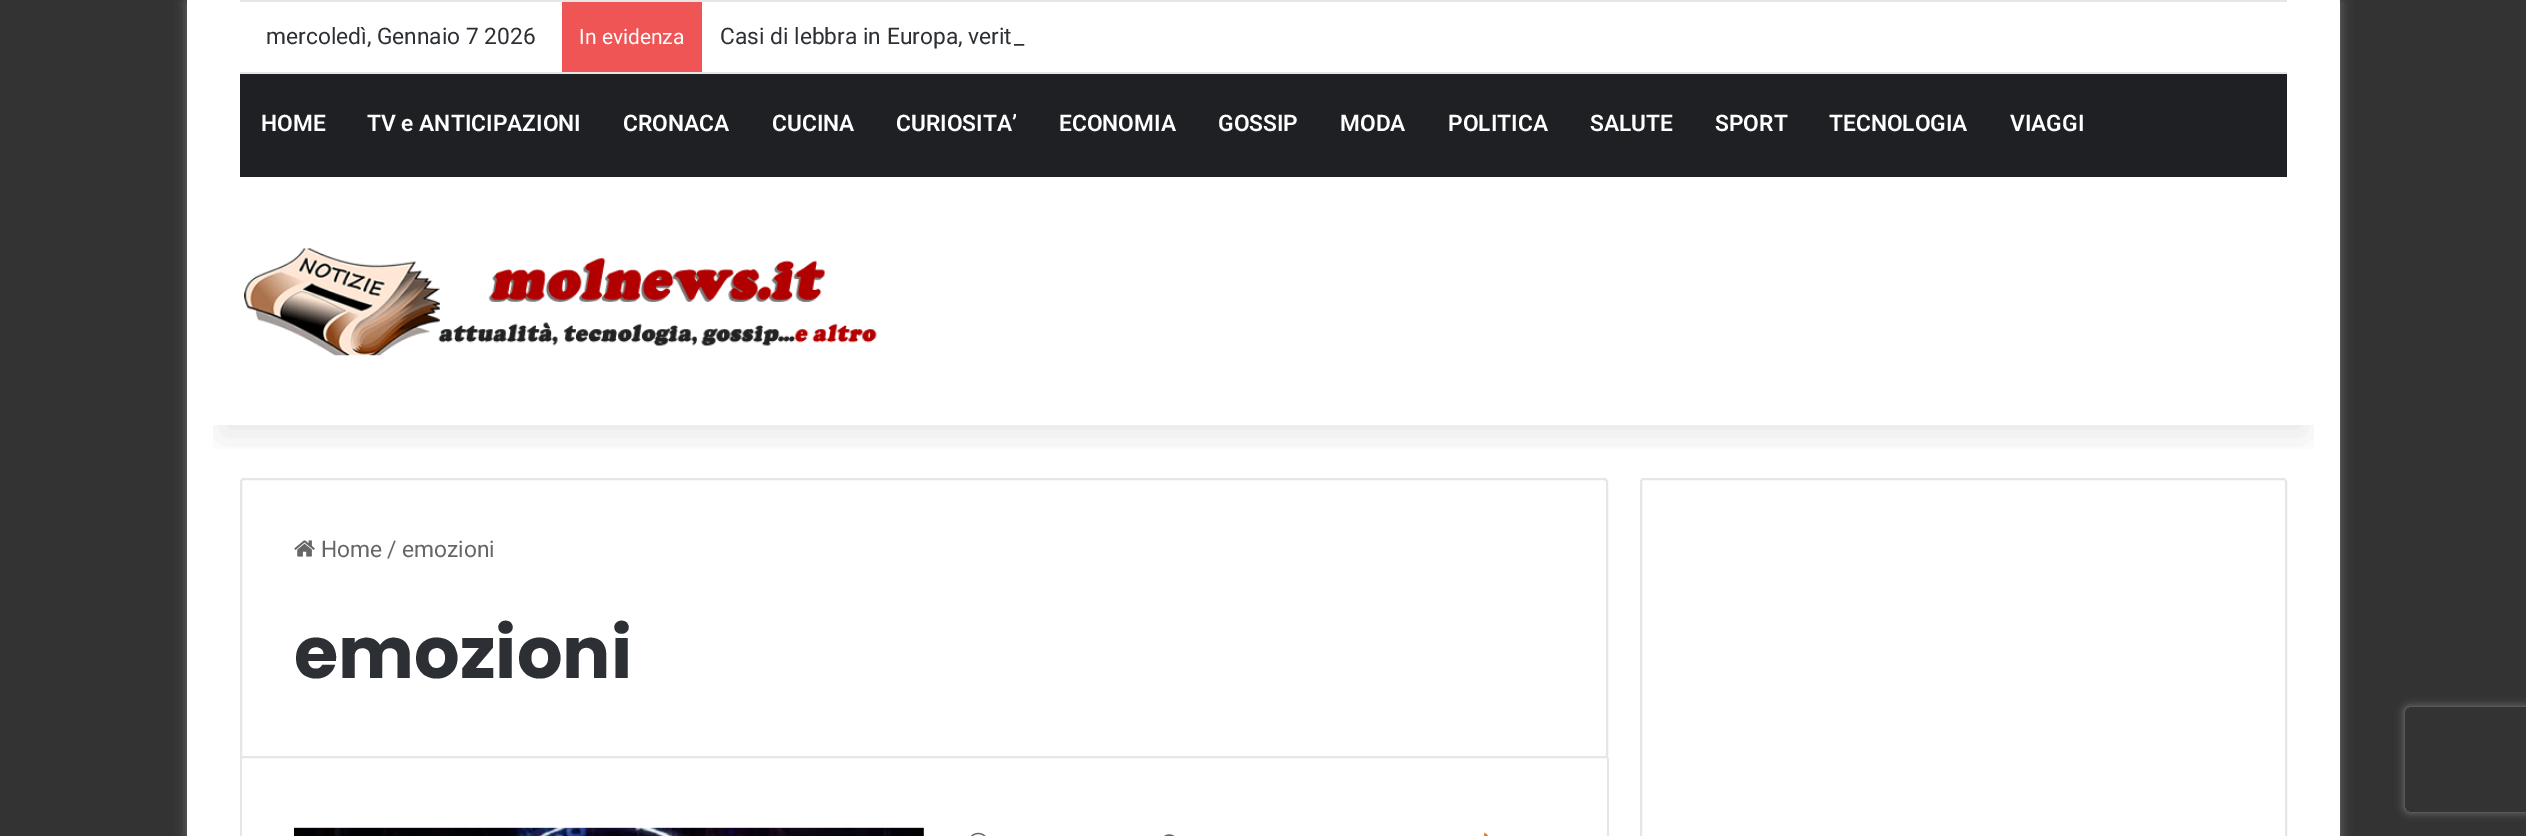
%!PS-Adobe-3.0
%%BoundingBox: 0 0 2526 836
%%LanguageLevel: 3
%%Pages: 1
%%EndComments
%%BeginProlog
/m { moveto } bind def
/l { lineto } bind def
/c { curveto } bind def
/h { closepath } bind def
/S { stroke } bind def
/q { gsave } bind def
/Q { grestore } bind def
/w { setlinewidth } bind def
/fn { [ exch dup neg 0 0 3 -1 roll 0 0 ] selectfont } def
/tx { moveto show } def
/bx { rectfill } def
/al { dup .setfillconstantalpha .setstrokeconstantalpha } def
/rr { 5 dict begin { /r /h /w /y /x } { exch def } forall
  x r add y moveto x w add y 2 copy h add r arct x w add y h add x 1 index r arct
  x y h add x y r arct x y 2 copy exch w add exch r arct closepath end } def
/sh { 12 dict begin { /a /b /q /h /w /y /x } { exch def } forall gsave /was 0 def
  9 -2 -9 { dup b mul 4 div /e exch def 1 sub .425 mul 2.718 exch exp 1 add a .99 .min exch div /now exch def
    1 1 now sub 1 was sub div sub al /was now def
    w h .min e 2 mul add 0 gt { x e sub y e sub w e 2 mul add h e 2 mul add
      q e add b .6 mul add w h .min 2 div e add .min 0 .max rr fill } if } for grestore end } def
/im { 5 dict begin { /h /w /y /x /name } { exch def } forall
  gsave x y translate w h scale
  w h 8 [w 0 0 h 0 0] name (r) file false 3 colorimage grestore end } def
%%EndProlog
%%BeginSetup
<< /PageSize [2526 836] /PageUsesTransparency true >> setpagedevice
%%EndSetup
%%Page: 1 1
0 .pushpdf14devicefilter
0 836 translate 1 -1 scale
4 setmiterlimit
0.2 setgray
0 0 2526 836 bx
0.671 setgray
187 2 2153 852 0 6 0.5 sh
1 setgray
187 0 2153 836 bx
0.902 setgray
2 w
244 479 m 1604 479 l 1605.5 479 1607 480.5 1607 482 c 1607 757 l 241 757 l 241 482 l 241 480.5 242.5 479 244 479 c h S
1641 479 645 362 3 rr S
q
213 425 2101 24 rectclip
0 setgray
222 79 2083 355 0 17.5 0.1 sh
Q
240 0 2047 2 bx
240 72 2047 2 bx
/Roboto-Regular 22.75 fn
0.173 0.184 0.204 setrgbcolor
(mercoledì, Gennaio 7 2026) 266 44 tx
0.941 0.333 0.333 setrgbcolor
562 2 140 70 bx
/Roboto-Regular 21 fn
1 setgray
(In evidenza) 579 44 tx
/Roboto-Regular 22.75 fn
0.173 0.184 0.204 setrgbcolor
(Casi di lebbra in Europa, verit) 720 44 tx
(_) 1014 44 tx
0.122 0.125 0.141 setrgbcolor
240 74 2047 103 bx
/Roboto-SemiBold 22.75 fn
1 setgray
(HOME) 261 131 tx
(TV e ANTICIPAZIONI) 367 131 tx
(CRONACA) 623 131 tx
(CUCINA) 772 131 tx
(CURIOSITA’) 896 131 tx
(ECONOMIA) 1059 131 tx
(GOSSIP) 1218 131 tx
(MODA) 1340 131 tx
(POLITICA) 1448 131 tx
(SALUTE) 1590 131 tx
(SPORT) 1715 131 tx
(TECNOLOGIA) 1829 131 tx
(VIAGGI) 2010 131 tx
(image0.raw) 244 248 633 108 im
(image1.raw) 294 540 21 17 im
/Roboto-Regular 22.75 fn
0.4 setgray
(Home) 321 557 tx
(/) 387 557 tx
(emozioni) 402 557 tx
/Poppins-Bold 71.75 fn
0.173 0.184 0.204 setrgbcolor
(emozioni) 294 678 tx
0.902 setgray
1607 758 2 78 bx
240 758 2 78 bx
(image2.raw) 294 827 630 9 im
(image3.raw) 970 832 16 4 im
(image4.raw) 1164 834 11 2 im
(image5.raw) 1483 832 5 4 im
q
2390 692 m 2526 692 l 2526 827 l 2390 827 l h 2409 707 m 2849 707 l 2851 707 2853 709 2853 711 c 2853 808 l 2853 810 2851 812 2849 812 c 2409 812 l 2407 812 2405 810 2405 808 c 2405 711 l 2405 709 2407 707 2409 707 c h eoclip newpath
0.502 setgray
2405 707 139 105 4 4.5 1 sh
Q
.poppdf14devicefilter showpage
%%EOF
